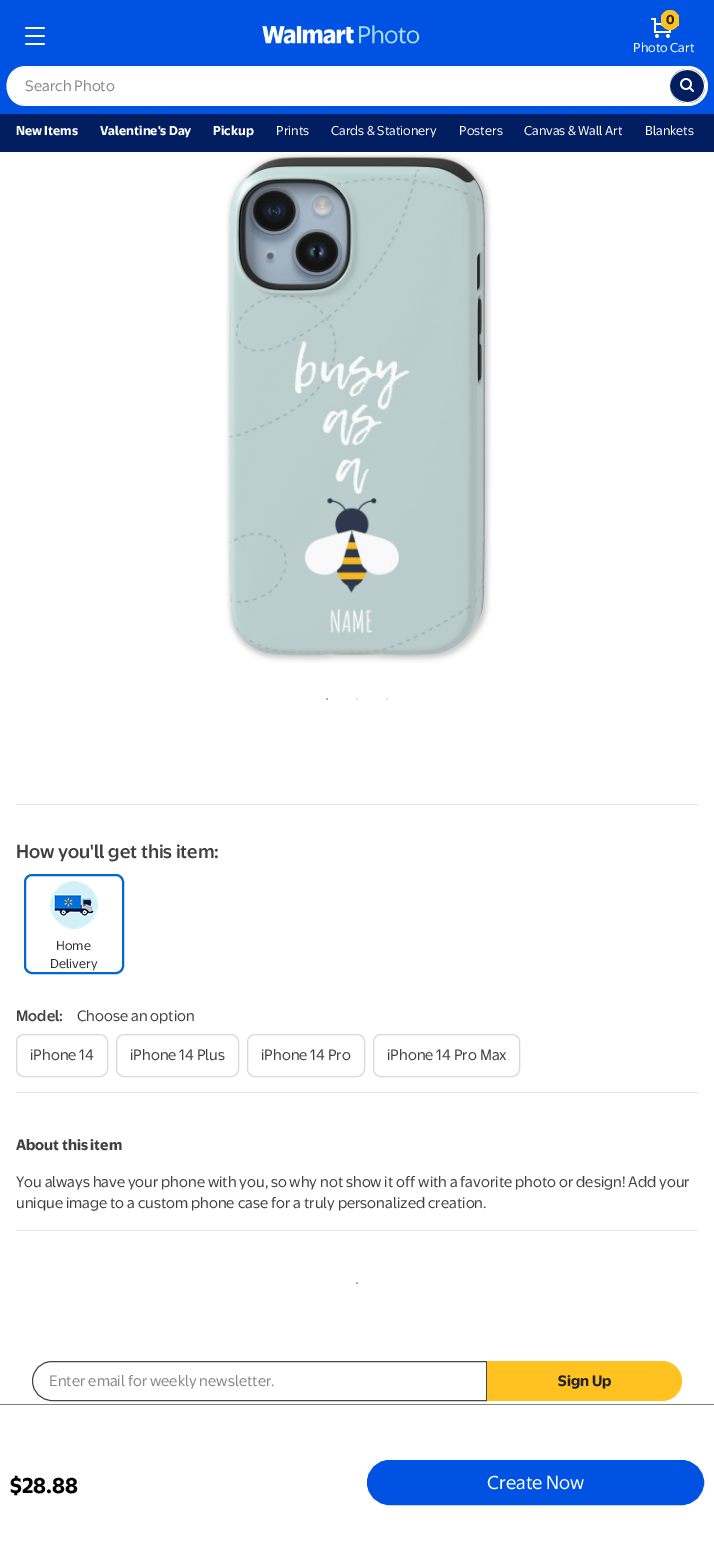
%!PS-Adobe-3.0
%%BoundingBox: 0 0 714 1560
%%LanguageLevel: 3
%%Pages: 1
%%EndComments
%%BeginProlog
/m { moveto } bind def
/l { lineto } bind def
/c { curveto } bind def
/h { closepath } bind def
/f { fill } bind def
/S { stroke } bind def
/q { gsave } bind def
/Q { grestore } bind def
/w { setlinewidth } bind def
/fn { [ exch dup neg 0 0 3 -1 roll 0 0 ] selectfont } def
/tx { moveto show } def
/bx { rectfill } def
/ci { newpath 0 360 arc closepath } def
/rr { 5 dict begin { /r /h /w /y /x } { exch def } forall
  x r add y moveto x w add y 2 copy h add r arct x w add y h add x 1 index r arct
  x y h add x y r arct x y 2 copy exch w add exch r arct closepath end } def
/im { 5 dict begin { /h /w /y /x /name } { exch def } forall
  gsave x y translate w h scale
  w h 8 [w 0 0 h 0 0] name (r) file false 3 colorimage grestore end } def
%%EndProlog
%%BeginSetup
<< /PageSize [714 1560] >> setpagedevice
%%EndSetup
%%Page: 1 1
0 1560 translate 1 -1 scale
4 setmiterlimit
1 setgray
0 0 714 1560 bx
0 0.325 0.886 setrgbcolor
0 0 714 114 bx
(image0.raw) 25 27 20 18 im
(image1.raw) 262 25 158 19 im
(image2.raw) 651 18 20 20 im
1 0.761 0.125 setrgbcolor
661 10 18 20 9 rr f
677 15 2 11 bx
661 15 2 11 bx
/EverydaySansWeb-Bold 12 fn
0.133 setgray
(0) 666 24 tx
/EverydaySansWeb-Regular 12 fn
1 setgray
(Photo Cart) 633 52 tx
26 67 m 670 67 l 670 105 l 26 105 l 15.5 105 7 96.5 7 86 c 7 75.5 15.5 67 26 67 c h f
26 66 m 670 66 l 670 106 l 26 106 l 0 106 0 66 26 66 c h 26 67 m 670 67 l 670 105 l 26 105 l 16 105 7 96 7 86 c 7 76 16 67 26 67 c h eofill
/EverydaySansWeb-Regular 14 fn
0.533 setgray
(Search Photo) 25 91 tx
1 setgray
670 66 m 688 66 l 699 66 708 75 708 86 c 708 97 699 106 688 106 c 670 106 l h f
0 0.118 0.376 setrgbcolor
670 69 35 34 17 rr f
1 setgray
687.5 69 m 697 69 705 76.5 705 86 c 705 95.5 697 103 687.5 103 c 678 103 670 95.5 670 86 c 670 76.5 678 69 687.5 69 c h 687.5 70 m 696.5 70 704 77 704 86 c 704 95 696.5 102 687.5 102 c 678 102 670 95 670 86 c 670 77 678 70 687.5 70 c h eofill
(image3.raw) 680 78 14 14 im
0 0.118 0.376 setrgbcolor
0 114 714 38 bx
/EverydaySansWeb-Bold 12 fn
1 setgray
(New Items) 16 135 tx
(Valentine's Day) 100 135 tx
(Pickup) 213 135 tx
/EverydaySansWeb-Regular 12 fn
(Prints) 276 135 tx
(Cards & Stationery) 331 135 tx
(Posters) 459 135 tx
(Canvas & Wall Art) 524 135 tx
(Blankets) 645 135 tx
(image4.raw) 226 153 266 510 im
/LiberationSerif-Regular 6 fn
0.251 setgray
(•) 326 701 tx
0.749 setgray
(•) 356 701 tx
(•) 386 701 tx
0.89 setgray
16 804 682 1 bx
16 1092 682 1 bx
/EverydaySansWeb-Medium 17.5 fn
0.251 setgray
(How you'll get this item:) 16 858 tx
0 0.408 0.824 setrgbcolor
2 w
25 875 98 98 7 rr S
0.914 0.973 0.988 setrgbcolor
74 905 24 ci f
(image5.raw) 50 881 48 48 im
/EverydaySansWeb-Regular 12 fn
0.18 0.184 0.196 setrgbcolor
(Home) 56 950 tx
(Delivery) 50 968 tx
/EverydaySansWeb-Medium 14 fn
0.251 setgray
(Model:) 16 1021 tx
/EverydaySansWeb-Regular 14 fn
(Choose an option) 77 1021 tx
0.851 setgray
1 w
16.5 1034.5 91 42 7.5 rr S
0.251 setgray
(iPhone 14) 30 1060 tx
0.851 setgray
116.5 1034.5 122 42 7.5 rr S
0.251 setgray
(iPhone 14 Plus) 130 1060 tx
0.851 setgray
247.5 1034.5 117 42 7.5 rr S
0.251 setgray
(iPhone 14 Pro) 261 1060 tx
0.851 setgray
373.5 1034.5 146 42 7.5 rr S
0.251 setgray
(iPhone 14 Pro Max) 387 1060 tx
0.502 setgray
0 1404 714 1 bx
/EverydaySansWeb-Bold 20 fn
0 setgray
($28.88) 10 1493 tx
0 0.325 0.886 setrgbcolor
367.5 1460.5 336 44 22 rr q f Q
S
/EverydaySansWeb-Regular 17.5 fn
1 setgray
(Create Now) 487 1489 tx
/EverydaySansWeb-Bold 14 fn
0.251 setgray
(About this item) 16 1150 tx
/EverydaySansWeb-Regular 14 fn
(You always have your phone with you, so why not show it off with a favorite photo or design! Add your) 16 1187 tx
(unique image to a custom phone case for a truly personalized creation.) 16 1208 tx
0.914 setgray
16 1230 682 1 bx
/LiberationSerif-Regular 6 fn
0.251 setgray
(•) 356 1285 tx
0.275 0.278 0.29 setrgbcolor
52 1361.5 m 486.5 1361.5 l 486.5 1400.5 l 52 1400.5 l 41 1400.5 32.5 1392 32.5 1381 c 32.5 1370 41 1361.5 52 1361.5 c h S
/EverydaySansWeb-Regular 14 fn
0.533 setgray
(Enter email for weekly newsletter.) 49 1386 tx
1 0.761 0.125 setrgbcolor
487 1361 m 662 1361 l 673 1361 682 1370 682 1381 c 682 1392 673 1401 662 1401 c 487 1401 l h f
/EverydaySansWeb-Bold 14 fn
0.133 setgray
(Sign Up) 558 1386 tx
showpage
%%EOF
